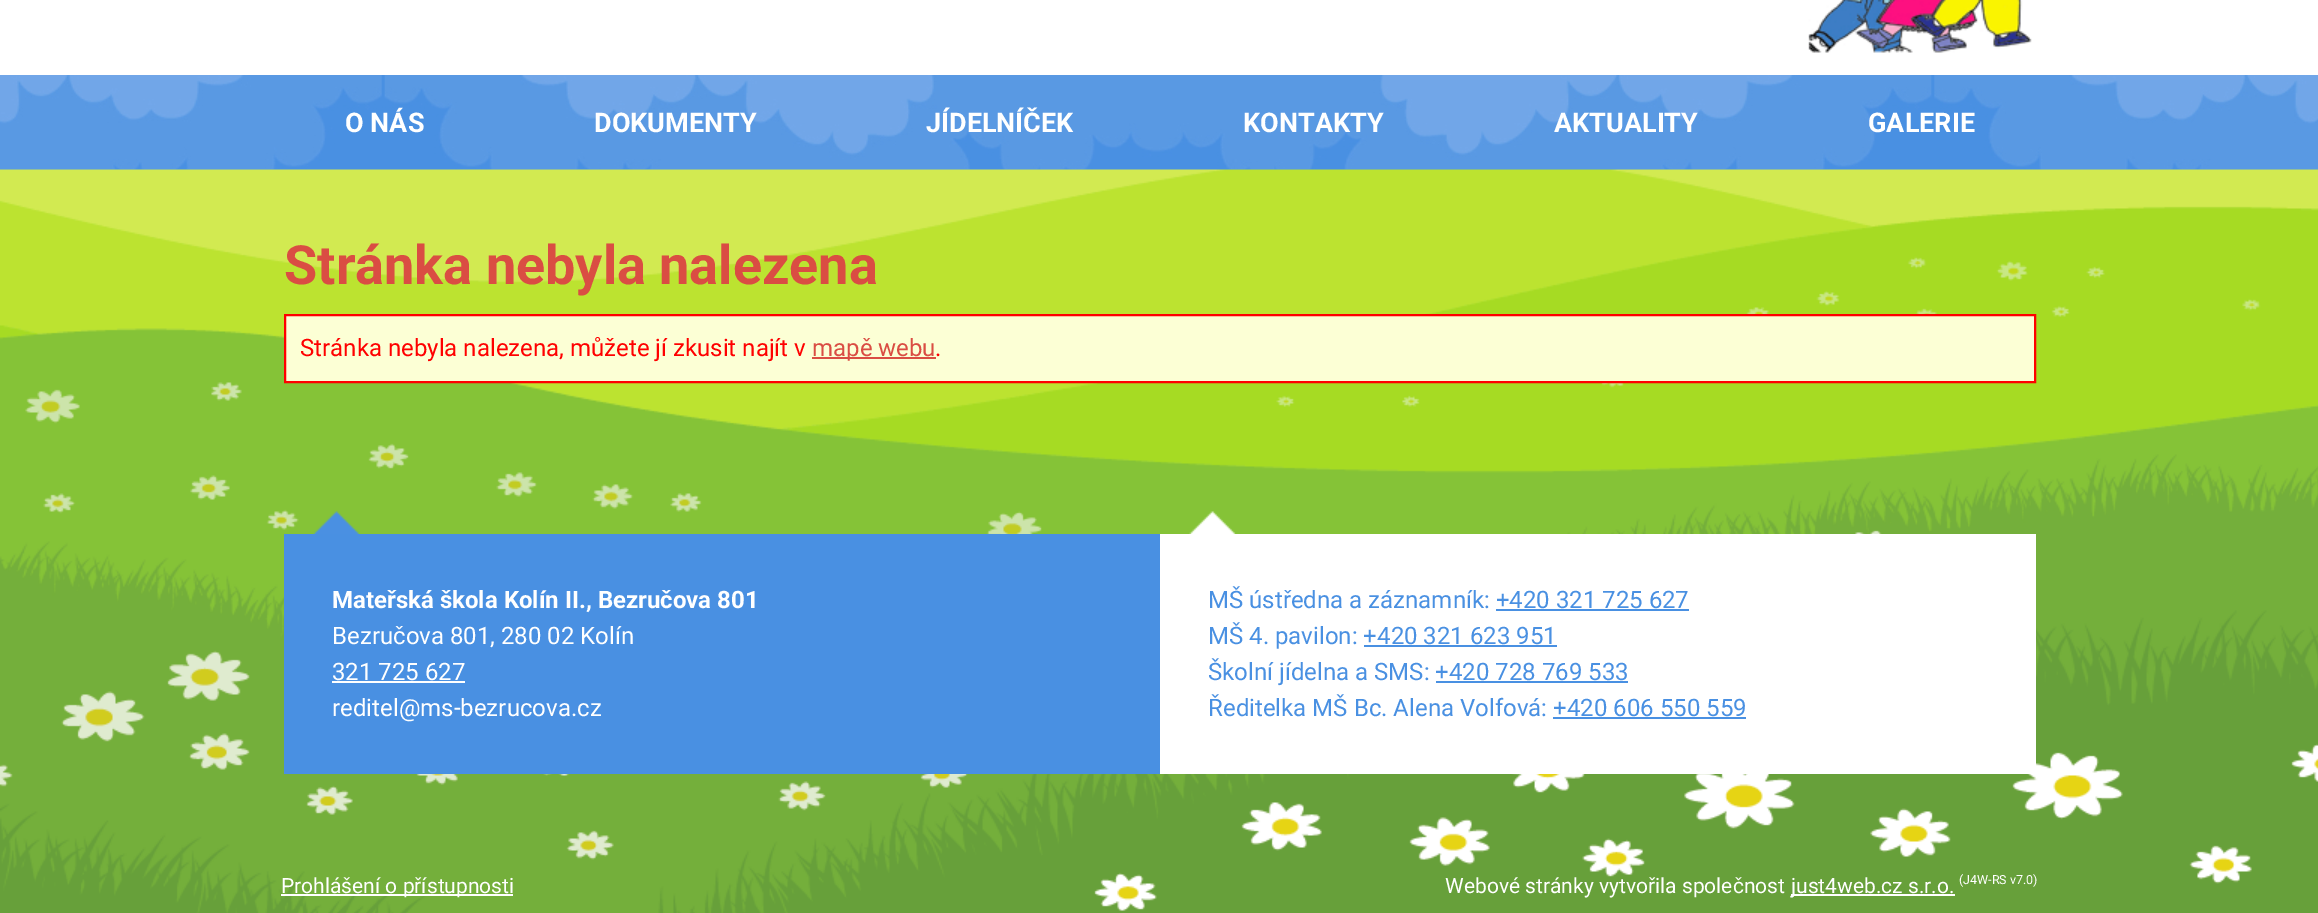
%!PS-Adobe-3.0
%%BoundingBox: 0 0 2318 913
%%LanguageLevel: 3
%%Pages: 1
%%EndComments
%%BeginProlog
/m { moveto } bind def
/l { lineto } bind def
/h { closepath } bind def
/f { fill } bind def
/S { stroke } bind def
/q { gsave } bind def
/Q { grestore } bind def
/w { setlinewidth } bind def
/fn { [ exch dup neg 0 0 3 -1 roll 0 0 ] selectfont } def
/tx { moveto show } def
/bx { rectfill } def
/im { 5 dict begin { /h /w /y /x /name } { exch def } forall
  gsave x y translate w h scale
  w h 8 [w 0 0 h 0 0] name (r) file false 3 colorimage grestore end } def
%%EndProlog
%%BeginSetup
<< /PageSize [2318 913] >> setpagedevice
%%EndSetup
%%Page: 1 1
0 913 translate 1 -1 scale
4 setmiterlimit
1 setgray
0 0 2318 913 bx
(image0.raw) 0 169 2318 687 im
(image1.raw) 1808 0 224 53 im
(image2.raw) 0 75 2318 95 im
/Roboto-Bold 27 fn
(O NÁS) 345 132 tx
(DOKUMENTY) 594 132 tx
(JÍDELNÍČEK) 926 132 tx
(KONTAKTY) 1243 132 tx
(AKTUALITY) 1554 132 tx
(GALERIE) 1868 132 tx
(image3.raw) 0 169 2318 744 im
/Roboto-Bold 54 fn
0.855 0.302 0.263 setrgbcolor
(Stránka nebyla nalezena) 284 284 tx
0.988 1 0.835 setrgbcolor
285 315 m 2035 315 l 2035 382 l 285 382 l h q f Q
1 0 0 setrgbcolor
2 w
S
/Roboto-Regular 24 fn
(Stránka nebyla nalezena, můžete jí zkusit najít v) 300 356 tx
0.855 0.302 0.263 setrgbcolor
812 357 124 2 bx
(mapě webu) 812 356 tx
1 0 0 setrgbcolor
(.) 935 356 tx
1 setgray
1160 534 876 240 bx
0.286 0.565 0.886 setrgbcolor
284 534 876 240 bx
(image4.raw) 313 511 47 23 im
/Roboto-Bold 24 fn
1 setgray
(Mateřská škola Kolín II., Bezručova 801) 332 608 tx
/Roboto-Regular 24 fn
(Bezručova 801, 280 02 Kolín) 332 644 tx
(321 725 627) 332 680 tx
332 681 133 2 bx
(reditel@ms-bezrucova.cz) 332 716 tx
(image5.raw) 1189 511 47 23 im
0.286 0.565 0.886 setrgbcolor
(MŠ ústředna a záznamník: +420 321 725 627) 1208 608 tx
1496 609 193 2 bx
(MŠ 4. pavilon: +420 321 623 951) 1208 644 tx
1364 645 193 2 bx
(Školní jídelna a SMS: +420 728 769 533) 1208 680 tx
1436 681 192 2 bx
(Ředitelka MŠ Bc. Alena Volfová: +420 606 550 559) 1208 716 tx
1553 717 193 2 bx
1 setgray
281 894 232 2 bx
/Roboto-Regular 21 fn
(Prohlášení o přístupnosti) 281 893 tx
(Webové stránky vytvořila společnost) 1445 893 tx
1791 894 164 2 bx
(just4web.cz s.r.o.) 1791 893 tx
/Roboto-Regular 12.5 fn
(\(J4W-RS v7.0\)) 1959 884 tx
showpage
%%EOF
